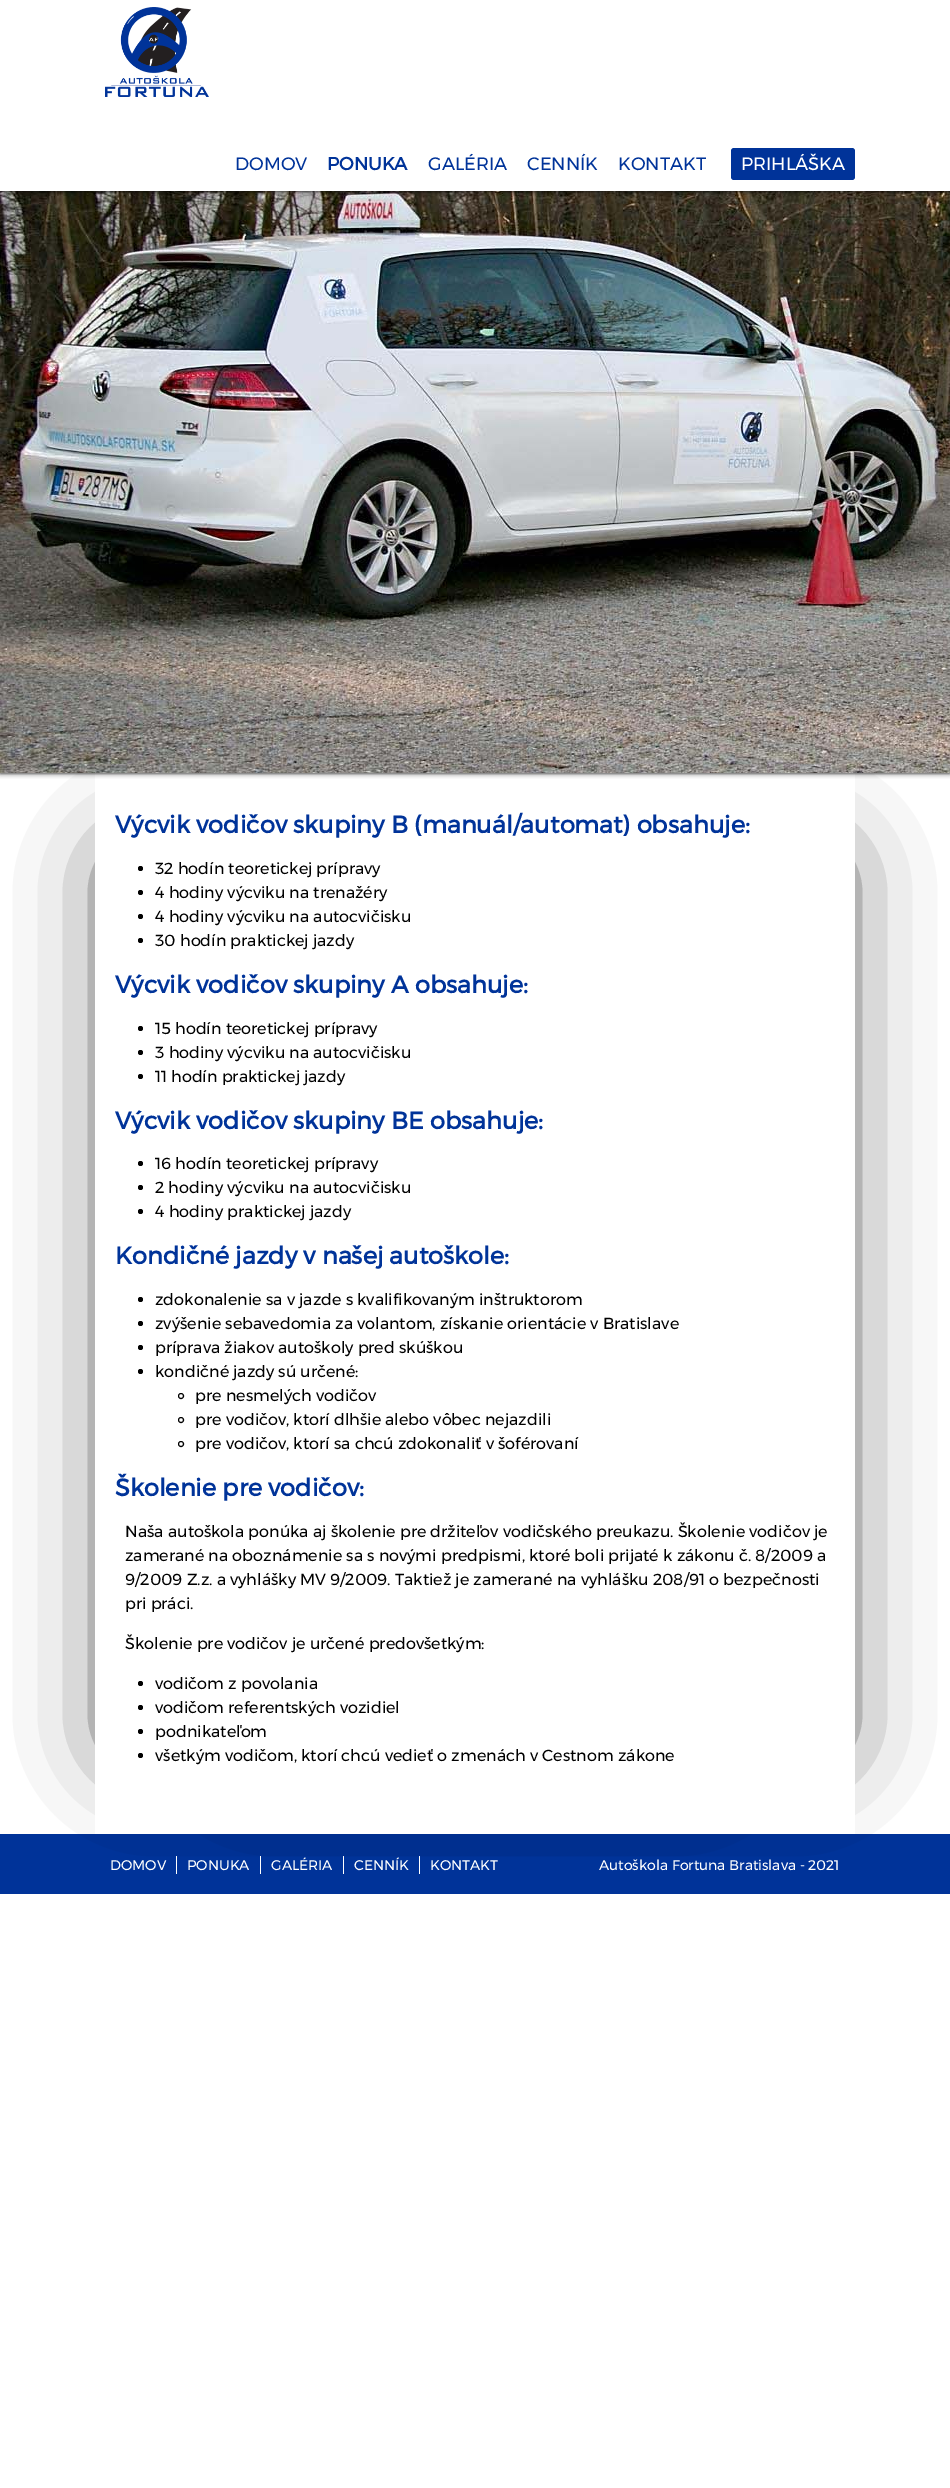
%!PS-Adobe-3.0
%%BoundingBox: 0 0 950 2488
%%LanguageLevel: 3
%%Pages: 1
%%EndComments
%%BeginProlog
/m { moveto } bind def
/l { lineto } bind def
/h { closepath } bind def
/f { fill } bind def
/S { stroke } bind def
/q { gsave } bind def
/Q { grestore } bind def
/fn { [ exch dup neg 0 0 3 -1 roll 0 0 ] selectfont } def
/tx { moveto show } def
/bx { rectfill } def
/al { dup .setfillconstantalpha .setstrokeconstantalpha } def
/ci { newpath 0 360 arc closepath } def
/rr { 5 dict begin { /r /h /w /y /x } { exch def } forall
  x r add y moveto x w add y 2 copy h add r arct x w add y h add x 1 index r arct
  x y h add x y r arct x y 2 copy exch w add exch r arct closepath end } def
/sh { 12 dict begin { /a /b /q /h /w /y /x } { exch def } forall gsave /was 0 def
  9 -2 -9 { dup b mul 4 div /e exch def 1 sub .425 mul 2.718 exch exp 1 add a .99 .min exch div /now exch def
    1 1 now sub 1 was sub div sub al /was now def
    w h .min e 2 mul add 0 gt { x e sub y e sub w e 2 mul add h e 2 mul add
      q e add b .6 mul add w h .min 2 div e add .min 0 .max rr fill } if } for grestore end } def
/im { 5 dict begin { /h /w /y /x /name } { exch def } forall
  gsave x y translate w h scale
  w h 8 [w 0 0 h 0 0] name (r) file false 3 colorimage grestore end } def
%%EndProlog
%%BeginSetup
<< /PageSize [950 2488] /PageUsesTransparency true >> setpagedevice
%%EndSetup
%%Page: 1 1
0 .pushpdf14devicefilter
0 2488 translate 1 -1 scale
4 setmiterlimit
1 setgray
0 0 950 2488 bx
0 setgray
0 108 950 665 0 2.5 1 sh
0 0.2 0.6 setrgbcolor
0 1834 950 60 bx
1 setgray
176 1856 1 18 bx
260 1856 1 18 bx
343 1856 1 18 bx
419 1856 1 18 bx
q
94 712 m 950 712 l 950 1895 l 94 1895 l h 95 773 m 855 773 l 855 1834 l 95 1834 l h eoclip newpath
0 setgray
245 863 580 881 0 50 1 sh
Q
q
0 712 m 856 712 l 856 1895 l 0 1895 l h 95 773 m 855 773 l 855 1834 l 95 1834 l h eoclip newpath
0 setgray
125 863 580 881 0 50 1 sh
Q
(image1.raw) 0 191 950 582 im
0 setgray
0 0 950 191 0 2.5 1 sh
1 setgray
0 0 950 191 bx
(image0.raw) 105 7 104 90 im
/Montserrat-Regular 18 fn
0 0.2 0.6 setrgbcolor
(DOMOV) 235 170 tx
/Montserrat-Bold 18 fn
(PONUKA) 327 170 tx
/Montserrat-Regular 18 fn
(GALÉRIA) 428 170 tx
(CENNÍK) 527 170 tx
(KONTAKT) 618 170 tx
731 148 124 32 3 rr f
1 setgray
(PRIHLÁŠKA) 741 170 tx
/Montserrat-Bold 24 fn
0 0.2 0.6 setrgbcolor
(Výcvik vodičov skupiny B \(manuál/automat\) obsahuje:) 115 833 tx
0 setgray
140.5 868.5 2.5 ci f
/Montserrat-Regular 16 fn
(32 hodín teoretickej prípravy) 155 874 tx
140.5 892.5 2.5 ci f
(4 hodiny výcviku na trenažéry) 155 898 tx
140.5 916.5 2.5 ci f
(4 hodiny výcviku na autocvičisku) 155 922 tx
140.5 940.5 2.5 ci f
(30 hodín praktickej jazdy) 155 946 tx
/Montserrat-Bold 24 fn
0 0.2 0.6 setrgbcolor
(Výcvik vodičov skupiny A obsahuje:) 115 993 tx
0 setgray
140.5 1028.5 2.5 ci f
/Montserrat-Regular 16 fn
(15 hodín teoretickej prípravy) 155 1034 tx
140.5 1052.5 2.5 ci f
(3 hodiny výcviku na autocvičisku) 155 1058 tx
140.5 1076.5 2.5 ci f
(11 hodín praktickej jazdy) 155 1082 tx
/Montserrat-Bold 24 fn
0 0.2 0.6 setrgbcolor
(Výcvik vodičov skupiny BE obsahuje:) 115 1129 tx
0 setgray
140.5 1163.5 2.5 ci f
/Montserrat-Regular 16 fn
(16 hodín teoretickej prípravy) 155 1169 tx
140.5 1187.5 2.5 ci f
(2 hodiny výcviku na autocvičisku) 155 1193 tx
140.5 1211.5 2.5 ci f
(4 hodiny praktickej jazdy) 155 1217 tx
/Montserrat-Bold 24 fn
0 0.2 0.6 setrgbcolor
(Kondičné jazdy v našej autoškole:) 115 1264 tx
0 setgray
140.5 1299.5 2.5 ci f
/Montserrat-Regular 16 fn
(zdokonalenie sa v jazde s kvalifikovaným inštruktorom) 155 1305 tx
140.5 1323.5 2.5 ci f
(zvýšenie sebavedomia za volantom, získanie orientácie v Bratislave) 155 1329 tx
140.5 1347.5 2.5 ci f
(príprava žiakov autoškoly pred skúškou) 155 1353 tx
140.5 1371.5 2.5 ci f
(kondičné jazdy sú určené:) 155 1377 tx
181 1396 2.5 ci S
(pre nesmelých vodičov) 195 1401 tx
181 1420 2.5 ci S
(pre vodičov, ktorí dlhšie alebo vôbec nejazdili) 195 1425 tx
181 1444 2.5 ci S
(pre vodičov, ktorí sa chcú zdokonaliť v šoférovaní) 195 1449 tx
/Montserrat-Bold 24 fn
0 0.2 0.6 setrgbcolor
(Školenie pre vodičov:) 115 1496 tx
/Montserrat-Regular 16 fn
0 setgray
(Naša autoškola ponúka aj školenie pre držiteľov vodičského preukazu. Školenie vodičov je) 125 1537 tx
(zamerané na oboznámenie sa s novými predpismi, ktoré boli prijaté k zákonu č. 8/2009 a) 125 1561 tx
(9/2009 Z.z. a vyhlášky MV 9/2009. Taktiež je zamerané na vyhlášku 208/91 o bezpečnosti) 125 1585 tx
(pri práci.) 125 1609 tx
(Školenie pre vodičov je určené predovšetkým:) 125 1649 tx
140.5 1683.5 2.5 ci f
(vodičom z povolania) 155 1689 tx
140.5 1707.5 2.5 ci f
(vodičom referentských vozidiel) 155 1713 tx
140.5 1731.5 2.5 ci f
(podnikateľom) 155 1737 tx
140.5 1755.5 2.5 ci f
(všetkým vodičom, ktorí chcú vedieť o zmenách v Cestnom zákone) 155 1761 tx
/Montserrat-Regular 14 fn
1 setgray
(DOMOV) 110 1870 tx
(PONUKA) 187 1870 tx
(GALÉRIA) 271 1870 tx
(CENNÍK) 354 1870 tx
(KONTAKT) 430 1870 tx
(Autoškola Fortuna Bratislava - 2021) 599 1870 tx
.poppdf14devicefilter showpage
%%EOF
